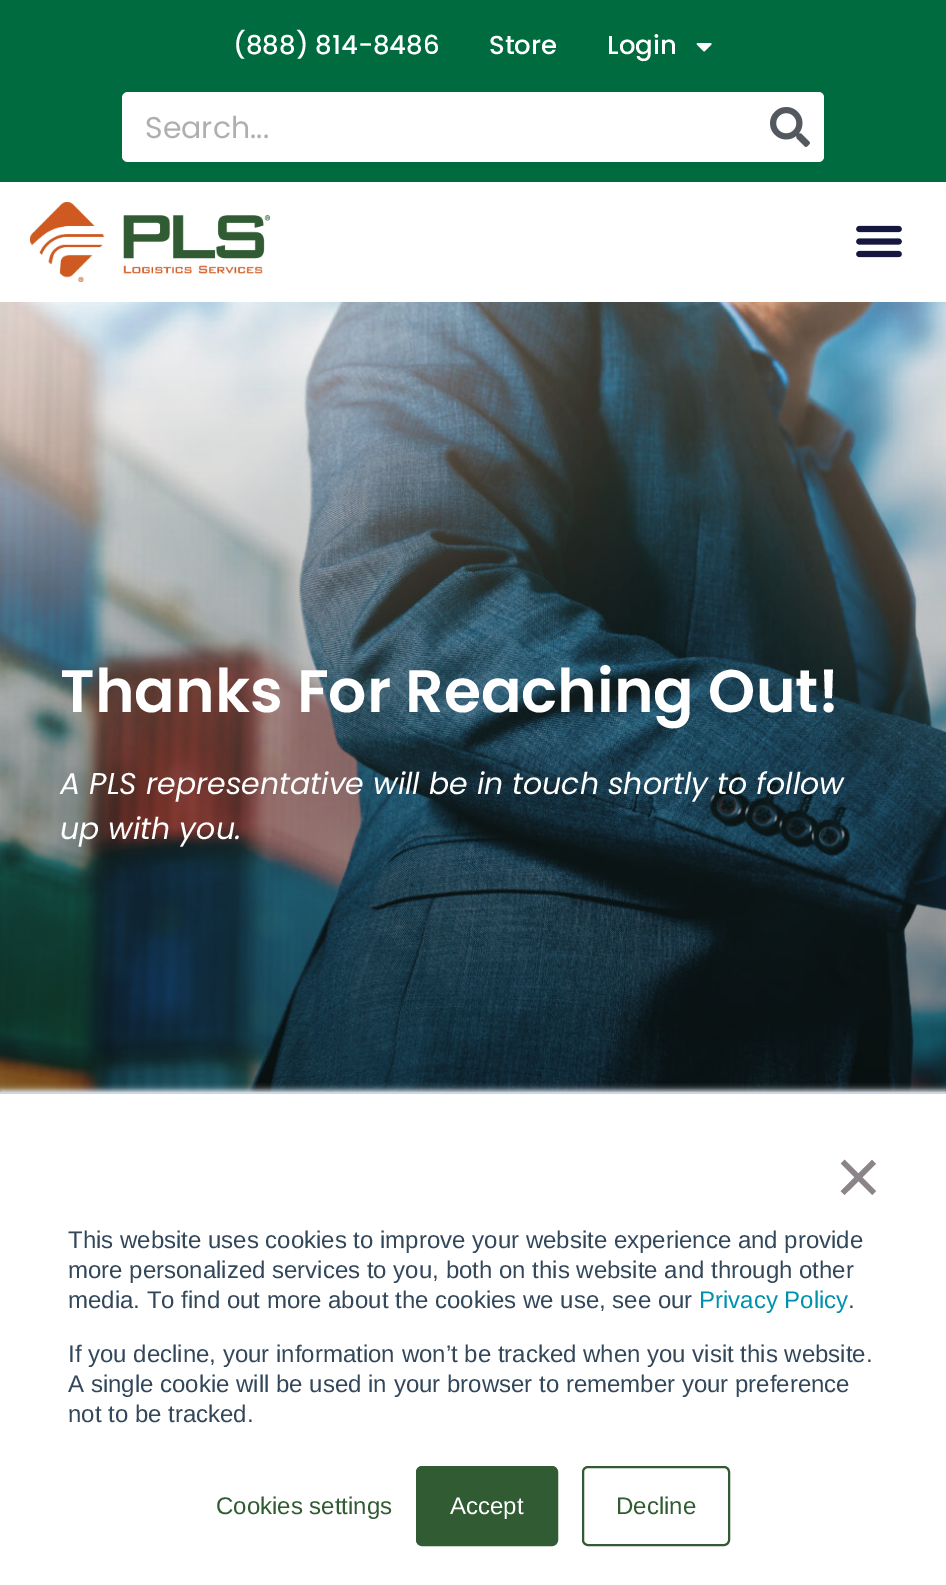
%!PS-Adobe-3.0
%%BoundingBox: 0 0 946 1585
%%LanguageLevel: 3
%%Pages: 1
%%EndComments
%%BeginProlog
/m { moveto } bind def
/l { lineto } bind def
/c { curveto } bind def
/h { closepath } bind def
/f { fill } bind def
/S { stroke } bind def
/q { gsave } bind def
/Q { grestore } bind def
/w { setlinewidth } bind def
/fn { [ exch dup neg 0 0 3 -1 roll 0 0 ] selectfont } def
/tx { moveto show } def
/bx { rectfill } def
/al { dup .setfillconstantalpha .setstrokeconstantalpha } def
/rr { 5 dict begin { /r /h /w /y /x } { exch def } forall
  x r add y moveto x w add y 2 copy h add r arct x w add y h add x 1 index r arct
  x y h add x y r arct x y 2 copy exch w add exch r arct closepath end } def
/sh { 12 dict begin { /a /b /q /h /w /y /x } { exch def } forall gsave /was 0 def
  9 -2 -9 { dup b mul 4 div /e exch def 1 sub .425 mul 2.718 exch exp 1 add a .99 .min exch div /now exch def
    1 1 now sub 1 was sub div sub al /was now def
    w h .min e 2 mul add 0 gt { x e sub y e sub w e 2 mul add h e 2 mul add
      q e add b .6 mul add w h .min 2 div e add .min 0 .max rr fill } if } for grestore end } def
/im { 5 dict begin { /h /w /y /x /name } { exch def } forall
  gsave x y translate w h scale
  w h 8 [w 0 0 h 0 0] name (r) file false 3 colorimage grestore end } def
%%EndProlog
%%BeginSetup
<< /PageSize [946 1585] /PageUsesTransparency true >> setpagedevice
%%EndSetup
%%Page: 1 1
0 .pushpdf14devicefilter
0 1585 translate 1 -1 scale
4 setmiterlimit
1 setgray
0 0 946 1585 bx
0 0.42 0.247 setrgbcolor
0 0 946 182 bx
/Poppins-Medium 26 fn
1 setgray
(\(888\) 814-8486) 233 54 tx
(Store) 489 54 tx
(Login) 607 54 tx
(image0.raw) 696 43 16 9 im
122 92 702 70 6 rr f
/Poppins-Regular 30 fn
0.686 setgray
(Search...) 145 138 tx
1 setgray
754 92 m 818 92 l 821.5 92 824 94.5 824 98 c 824 156 l 824 159.5 821.5 162 818 162 c 754 162 l h f
(image1.raw) 770 107 40 40 im
(image2.raw) 30 202 240 80 im
(image3.raw) 856 225 46 33 im
(image4.raw) 0 302 946 790 im
/Poppins-SemiBold 60 fn
(Thanks For Reaching Out!) 60 712 tx
/Poppins-Italic 30 fn
(A PLS representative will be in touch shortly to follow) 60 794 tx
(up with you.) 60 839 tx
0.918 0.941 0.965 setrgbcolor
0 1090 946 494 0 3 1 sh
1 setgray
0 1094 946 491 bx
0.796 0.839 0.886 setrgbcolor
0 1092 946 2 bx
/LiberationSans-Regular 80 fn
0.545 0.522 0.537 setrgbcolor
(×) 835 1204 tx
/LiberationSans-Regular 24 fn
0.2 0.278 0.357 setrgbcolor
(This website uses cookies to improve your website experience and provide) 68 1248 tx
(more personalized services to you, both on this website and through other) 68 1278 tx
(media. To find out more about the cookies we use, see our) 68 1308 tx
0 0.569 0.682 setrgbcolor
(Privacy Policy) 699 1308 tx
0.2 0.278 0.357 setrgbcolor
(.) 848 1308 tx
(If you decline, your information won’t be tracked when you visit this website.) 68 1362 tx
(A single cookie will be used in your browser to remember your preference) 68 1392 tx
(not to be tracked.) 68 1422 tx
0.192 0.357 0.2 setrgbcolor
(Cookies settings) 216 1514 tx
417 1467 140 78 5 rr q f Q
2 w
S
1 setgray
(Accept) 450 1514 tx
0.192 0.357 0.2 setrgbcolor
583 1467 146 78 5 rr S
(Decline) 616 1514 tx
.poppdf14devicefilter showpage
%%EOF
